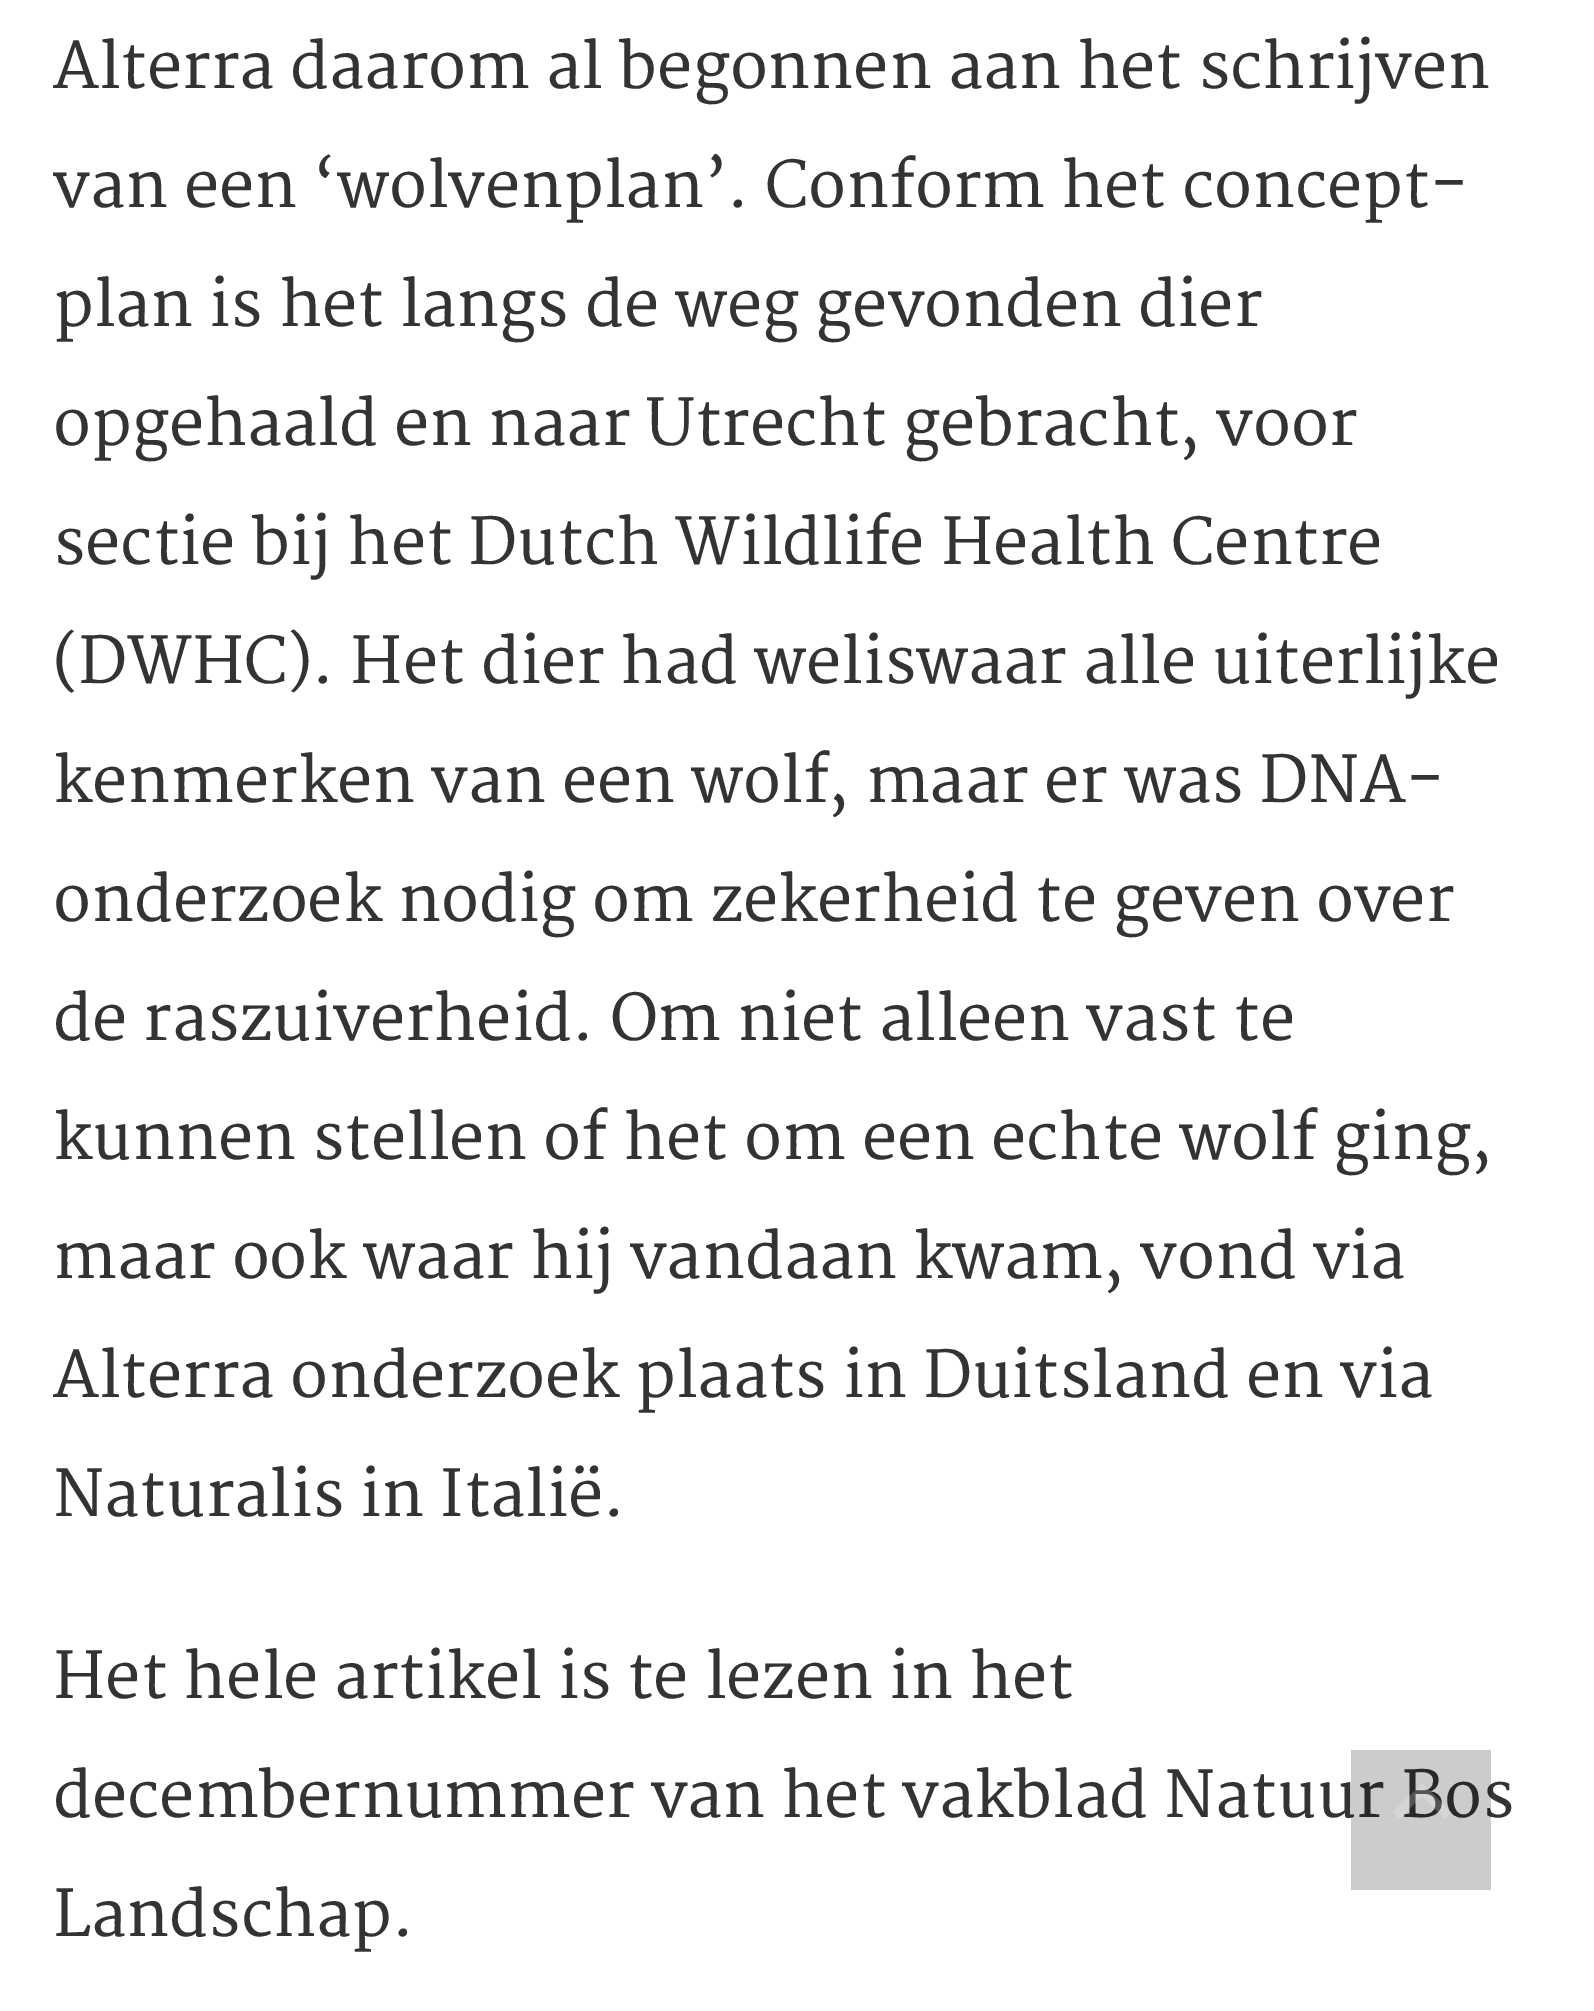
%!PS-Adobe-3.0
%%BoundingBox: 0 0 1594 2011
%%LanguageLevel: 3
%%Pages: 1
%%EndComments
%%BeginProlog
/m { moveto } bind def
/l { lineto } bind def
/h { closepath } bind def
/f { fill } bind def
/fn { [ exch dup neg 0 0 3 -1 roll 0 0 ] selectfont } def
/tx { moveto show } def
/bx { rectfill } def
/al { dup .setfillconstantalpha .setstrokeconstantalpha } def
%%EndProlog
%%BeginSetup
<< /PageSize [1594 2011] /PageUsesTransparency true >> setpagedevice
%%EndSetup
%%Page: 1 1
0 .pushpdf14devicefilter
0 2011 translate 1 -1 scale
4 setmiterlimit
1 setgray
0 0 1594 2011 bx
/Merriweather-Regular 63 fn
0.2 setgray
(Alterra daarom al begonnen aan het schrijven) 53 88 tx
(van een ‘wolvenplan’. Conform het concept-) 53 207 tx
(plan is het langs de weg gevonden dier) 53 326 tx
(opgehaald en naar Utrecht gebracht, voor) 53 445 tx
(sectie bij het Dutch Wildlife Health Centre) 53 564 tx
(\(DWHC\). Het dier had weliswaar alle uiterlijke) 53 683 tx
(kenmerken van een wolf, maar er was DNA-) 53 802 tx
(onderzoek nodig om zekerheid te geven over) 53 921 tx
(de raszuiverheid. Om niet alleen vast te) 53 1040 tx
(kunnen stellen of het om een echte wolf ging,) 53 1159 tx
(maar ook waar hij vandaan kwam, vond via) 53 1278 tx
(Alterra onderzoek plaats in Duitsland en via) 53 1397 tx
(Naturalis in Italië.) 53 1516 tx
(Het hele artikel is te lezen in het) 53 1698 tx
(decembernummer van het vakblad Natuur Bos) 53 1817 tx
(Landschap.) 53 1936 tx
0.2 al
0 setgray
1351 1750 140 140 bx
1 setgray
1429 1790 m 1451 1812 l 1445 1819 l 1422 1796 l 1399 1819 l 1393 1812 l 1422 1784 l h f
.poppdf14devicefilter showpage
%%EOF
